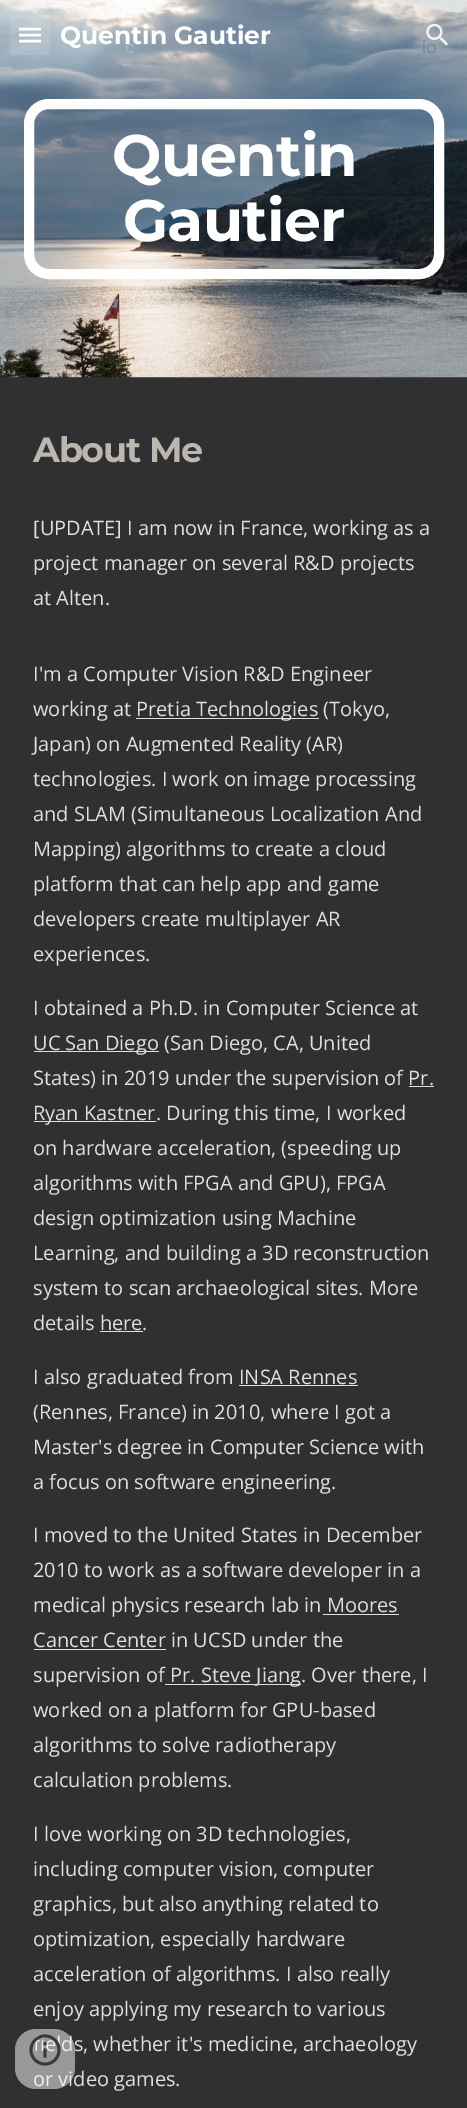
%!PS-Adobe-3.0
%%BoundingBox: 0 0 467 2108
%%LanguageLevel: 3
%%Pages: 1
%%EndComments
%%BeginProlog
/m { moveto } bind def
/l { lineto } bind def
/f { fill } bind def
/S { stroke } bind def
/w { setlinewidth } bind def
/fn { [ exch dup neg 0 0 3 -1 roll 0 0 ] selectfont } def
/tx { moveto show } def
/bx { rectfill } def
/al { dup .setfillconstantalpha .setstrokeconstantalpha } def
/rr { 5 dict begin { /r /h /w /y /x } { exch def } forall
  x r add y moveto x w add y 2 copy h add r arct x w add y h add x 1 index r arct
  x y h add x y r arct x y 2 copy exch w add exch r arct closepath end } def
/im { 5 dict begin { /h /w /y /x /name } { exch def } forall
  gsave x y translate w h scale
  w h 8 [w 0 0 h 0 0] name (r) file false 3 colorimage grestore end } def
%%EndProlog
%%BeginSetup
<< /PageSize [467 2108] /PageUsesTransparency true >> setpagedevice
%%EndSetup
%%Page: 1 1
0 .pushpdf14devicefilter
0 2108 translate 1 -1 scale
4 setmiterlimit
0.188 0.188 0.2 setrgbcolor
0 0 467 2108 bx
(image1.raw) 0 0 467 378 im
1 setgray
2.5 w
19 29 m 41 29 l 19 35 m 41 35 l 19 41 m 41 41 l S
0.12 al
10 15 40 40 bx
/Montserrat-Bold 25 fn
1 al
(Quentin Gautier) 60 44 tx
(image0.raw) 426 23 22 23 im
10 w
29 104 410 170 20 rr S
/Montserrat-Bold 58.5 fn
112 176 m -0.75 0 (Quentin) ashow
123 241 m -0.75 0 (Gautier) ashow
/Montserrat-Bold 35 fn
0.733 0.718 0.686 setrgbcolor
33 462 m -1.25 0 (About Me) ashow
/OpenSans-Regular 20 fn
0.882 0.875 0.859 setrgbcolor
([UPDATE] I am now in France, working as a) 33 535 tx
(project manager on several R&D projects) 33 570 tx
(at Alten.) 33 605 tx
(I'm a Computer Vision R&D Engineer) 33 681 tx
(working at) 33 716 tx
136 718 183 1 bx
(Pretia Technologies \(Tokyo,) 136 716 tx
(Japan\) on Augmented Reality \(AR\)) 33 751 tx
(technologies. I work on image processing) 33 786 tx
(and SLAM \(Simultaneous Localization And) 33 821 tx
(Mapping\) algorithms to create a cloud) 33 856 tx
(platform that can help app and game) 33 891 tx
(developers create multiplayer AR) 33 926 tx
(experiences.) 33 961 tx
(I obtained a Ph.D. in Computer Science at) 33 1015 tx
34 1051 125 1 bx
(UC San Diego \(San Diego, CA, United) 33 1050 tx
(States\) in 2019 under the supervision of Pr.) 33 1085 tx
34 1121 122 1 bx
(Ryan Kastner. During this time, I worked) 33 1120 tx
409 1086 25 1 bx
(on hardware acceleration, \(speeding up) 33 1155 tx
(algorithms with FPGA and GPU\), FPGA) 33 1190 tx
(design optimization using Machine) 33 1225 tx
(Learning, and building a 3D reconstruction) 33 1260 tx
(system to scan archaeological sites. More) 33 1295 tx
(details here.) 33 1330 tx
100 1331 43 1 bx
(I also graduated from INSA Rennes) 33 1384 tx
239 1385 119 1 bx
(\(Rennes, France\) in 2010, where I got a) 33 1419 tx
(Master's degree in Computer Science with) 33 1454 tx
(a focus on software engineering.) 33 1489 tx
(I moved to the United States in December) 33 1542 tx
(2010 to work as a software developer in a) 33 1577 tx
(medical physics research lab in Moores) 33 1612 tx
(Cancer Center in UCSD under the) 33 1647 tx
323 1614 76 1 bx
34 1649 132 1 bx
(supervision of) 33 1682 tx
165 1684 136 1 bx
(Pr. Steve Jiang. Over there, I) 170 1682 tx
(worked on a platform for GPU-based) 33 1717 tx
(algorithms to solve radiotherapy) 33 1752 tx
(calculation problems.) 33 1787 tx
(I love working on 3D technologies,) 33 1841 tx
(including computer vision, computer) 33 1876 tx
(graphics, but also anything related to) 33 1911 tx
(optimization, especially hardware) 33 1946 tx
(acceleration of algorithms. I also really) 33 1981 tx
(enjoy applying my research to various) 33 2016 tx
(elds, whether it's medicine, archaeology) 45 2051 tx
(or video games.) 33 2086 tx
0.5 al
1 setgray
15 2029 60 60 21 rr f
1 al
(image2.raw) 29 2034 32 32 im
/GoogleSans-Medium 18 fn
0.651 0.706 0.749 setrgbcolor
(c) 125 53 tx
0.463 0.545 0.62 setrgbcolor
(io) 422 53 tx
.poppdf14devicefilter showpage
%%EOF
